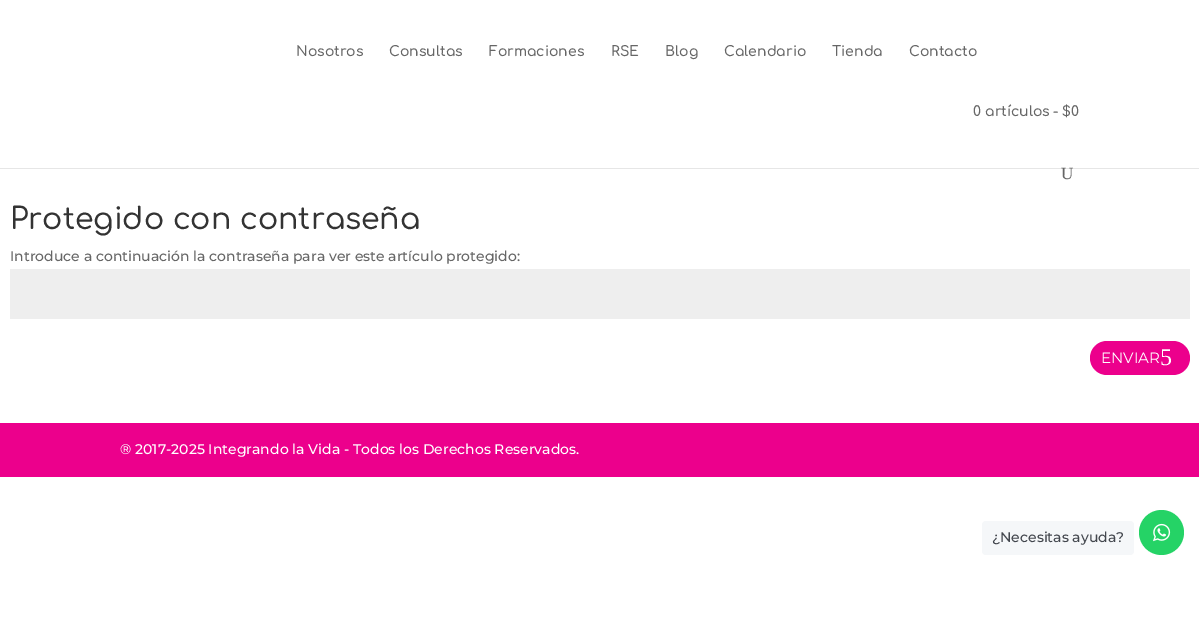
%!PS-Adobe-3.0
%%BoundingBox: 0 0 1199 635
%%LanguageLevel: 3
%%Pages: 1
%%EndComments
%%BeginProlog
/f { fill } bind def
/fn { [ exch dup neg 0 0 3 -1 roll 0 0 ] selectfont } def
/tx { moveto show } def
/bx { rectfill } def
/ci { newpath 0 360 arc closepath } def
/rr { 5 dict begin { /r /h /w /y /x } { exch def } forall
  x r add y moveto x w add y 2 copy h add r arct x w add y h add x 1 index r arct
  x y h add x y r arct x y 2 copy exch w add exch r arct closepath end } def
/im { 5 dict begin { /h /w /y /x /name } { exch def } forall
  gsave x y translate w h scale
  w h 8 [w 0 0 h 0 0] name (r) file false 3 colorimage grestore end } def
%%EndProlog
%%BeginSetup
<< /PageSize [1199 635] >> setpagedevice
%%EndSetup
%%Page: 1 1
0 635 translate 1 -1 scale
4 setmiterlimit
1 setgray
0 0 1199 635 bx
0.902 setgray
0 168 1199 1 bx
/Comfortaa-SemiBold 14 fn
0.4 setgray
(Nosotros) 296 56 tx
(Consultas) 389 56 tx
(Formaciones) 489 56 tx
(RSE) 611 56 tx
(Blog) 665 56 tx
(Calendario) 724 56 tx
(Tienda) 832 56 tx
(Contacto) 909 56 tx
(0 artículos) 973 116 tx
(-) 1053 116 tx
($0) 1062 116 tx
/LiberationSerif-Regular 17 fn
(U) 1061 179 tx
/Comfortaa-Medium 30 fn
0.2 setgray
(Protegido con contraseña) 10 229 tx
/Montserrat-Medium 14 fn
0.4 setgray
(Introduce a continuación la contraseña para ver este artículo protegido:) 10 261 tx
0.933 setgray
10 269 1180 50 bx
0.925 0 0.549 setrgbcolor
1090 341 100 34 17 rr f
/Montserrat-Regular 15 fn
1 setgray
(ENVIAR) 1101 363 tx
/LiberationSerif-Regular 24 fn
(5) 1160 365 tx
0.925 0 0.549 setrgbcolor
0 423 1199 54 bx
/Montserrat-Medium 14 fn
1 setgray
(® 2017-2025 Integrando la Vida - Todos los Derechos Reservados.) 120 454 tx
0.961 0.969 0.976 setrgbcolor
982 521 152 34 4 rr f
0.263 0.278 0.306 setrgbcolor
(¿Necesitas ayuda?) 992 542 tx
0.145 0.827 0.4 setrgbcolor
1161.5 532.5 22.5 ci f
(image0.raw) 1153 523 18 19 im
showpage
%%EOF
